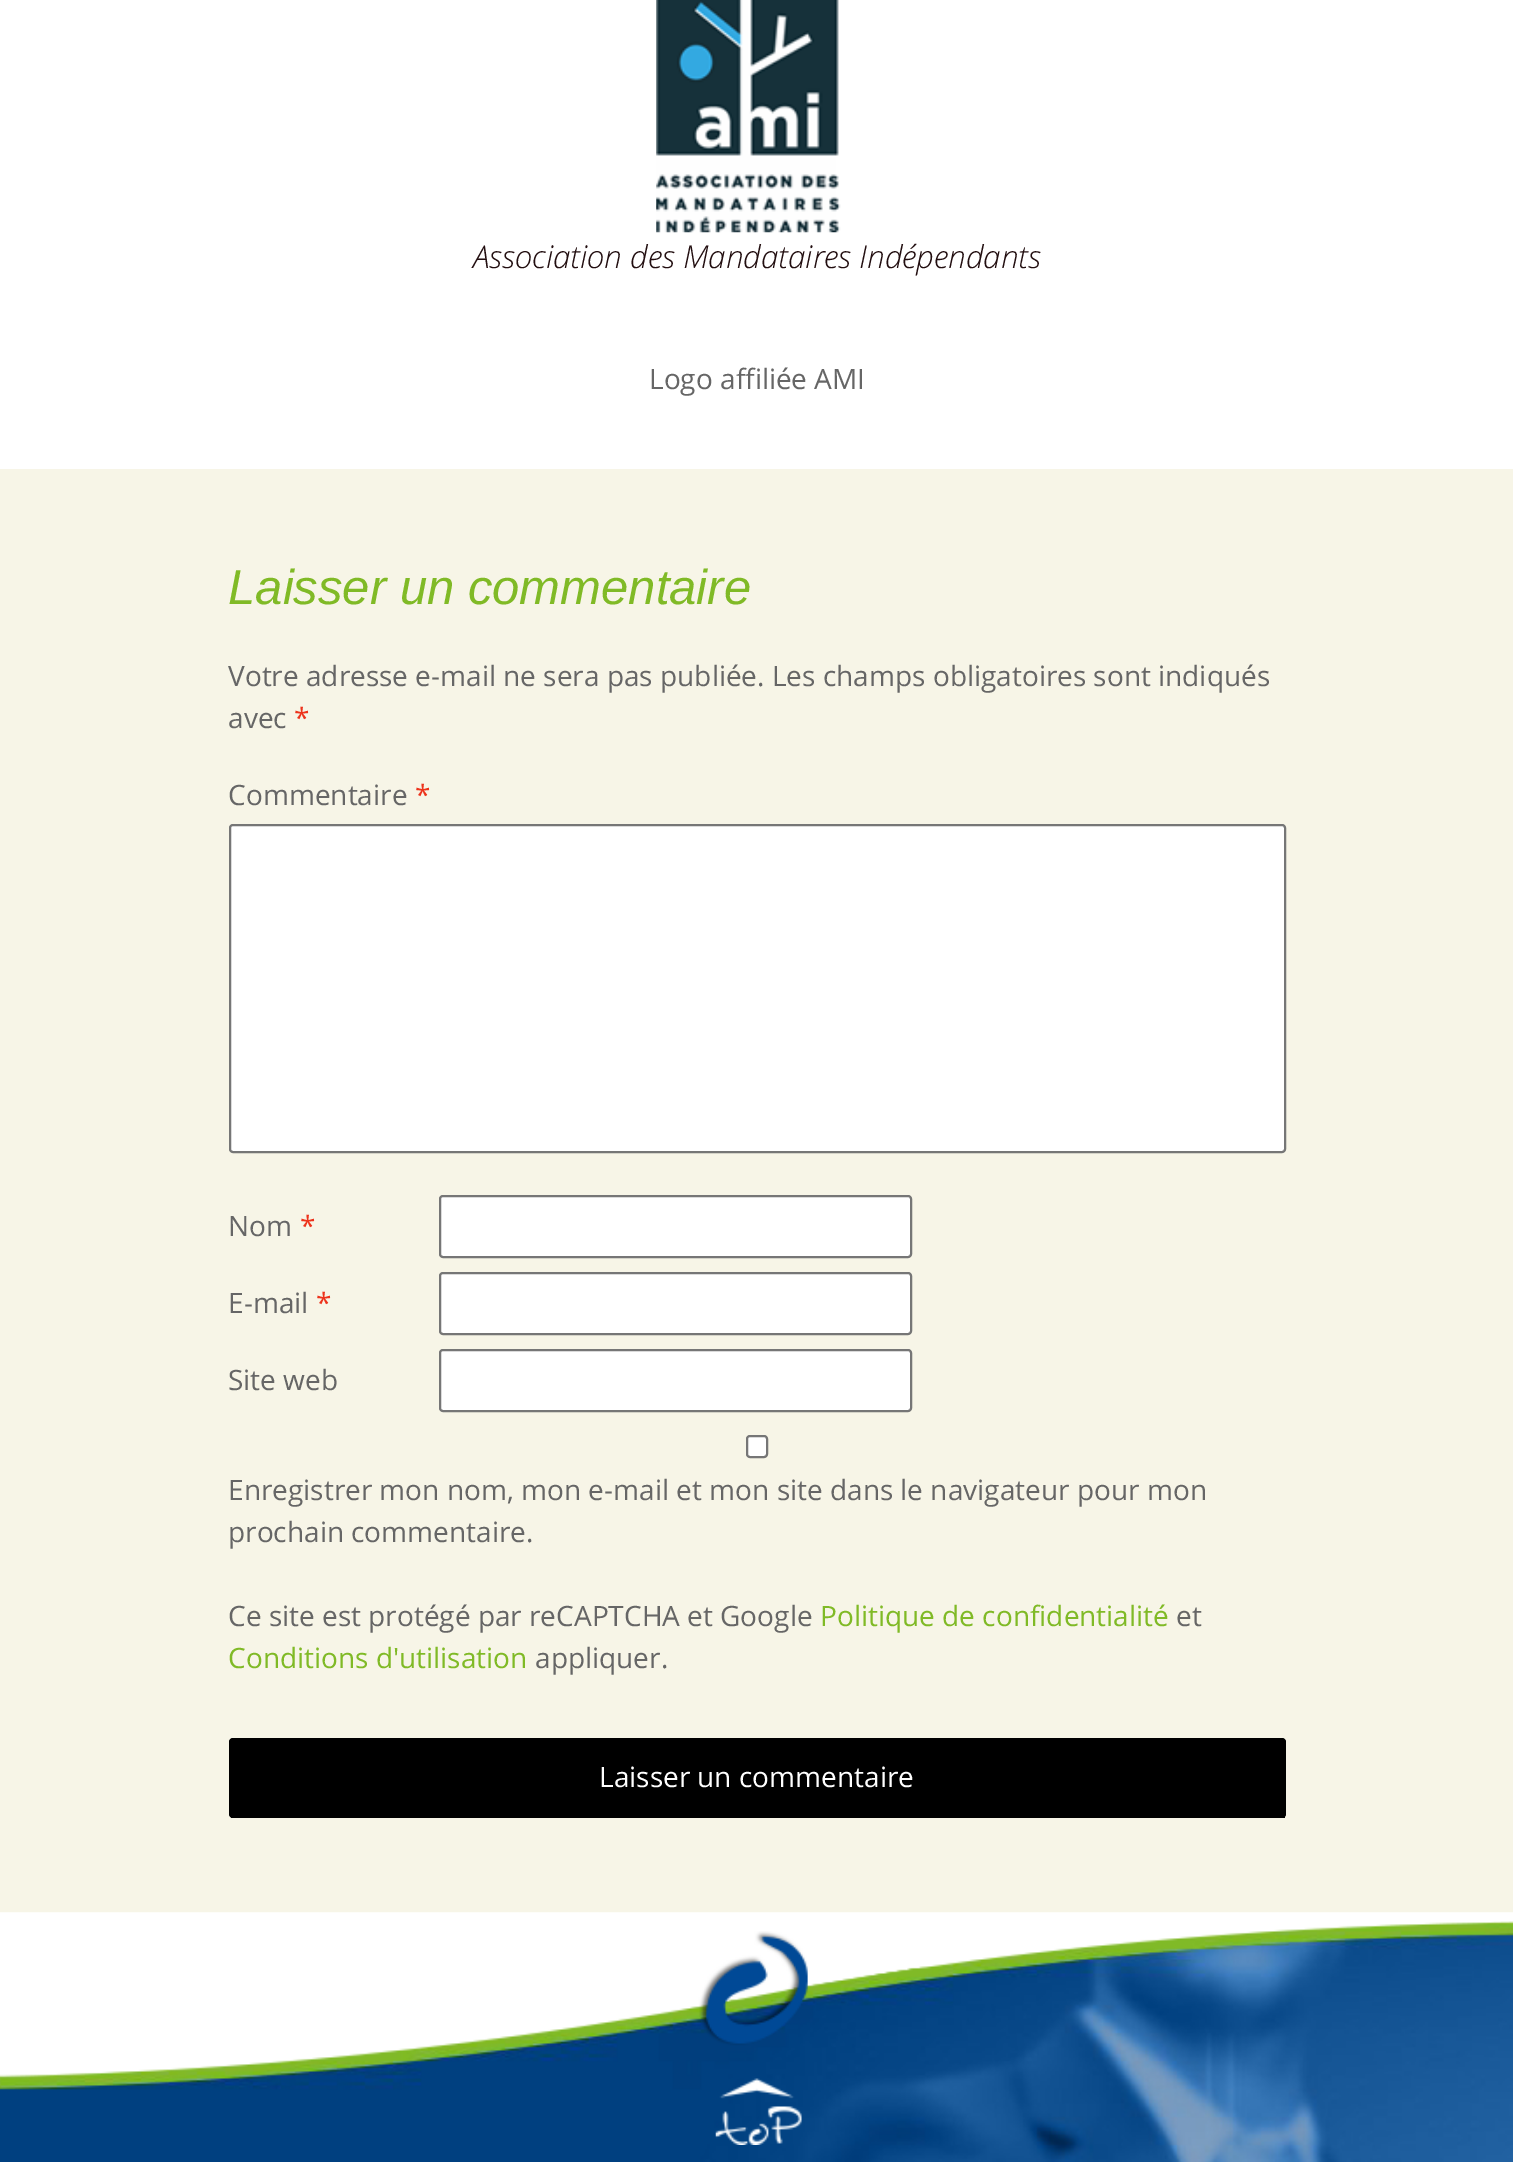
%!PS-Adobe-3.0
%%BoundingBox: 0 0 1513 2162
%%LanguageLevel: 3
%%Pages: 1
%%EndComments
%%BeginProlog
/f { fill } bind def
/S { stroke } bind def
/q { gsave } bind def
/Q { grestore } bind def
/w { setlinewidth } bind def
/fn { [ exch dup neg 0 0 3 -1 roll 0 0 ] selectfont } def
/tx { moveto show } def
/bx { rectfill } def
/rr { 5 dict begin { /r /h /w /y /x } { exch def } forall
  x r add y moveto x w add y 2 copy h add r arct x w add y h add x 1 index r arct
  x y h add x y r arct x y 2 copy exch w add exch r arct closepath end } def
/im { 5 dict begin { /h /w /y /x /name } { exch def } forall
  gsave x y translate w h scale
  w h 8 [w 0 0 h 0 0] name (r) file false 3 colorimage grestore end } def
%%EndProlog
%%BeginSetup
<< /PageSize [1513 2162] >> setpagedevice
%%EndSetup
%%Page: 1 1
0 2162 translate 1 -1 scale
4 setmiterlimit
1 setgray
0 0 1513 2162 bx
(image0.raw) 656 0 185 233 im
/OpenSans-LightItalic 31.5 fn
0.133 0.055 0.063 setrgbcolor
(Association des Mandataires Indépendants) 473 268 tx
/OpenSans-Regular 28 fn
0.4 setgray
(Logo affiliée AMI) 649 389 tx
0.969 0.961 0.906 setrgbcolor
0 469 1513 1444 bx
/LiberationSans-Italic 49 fn
0.502 0.729 0.149 setrgbcolor
(Laisser un commentaire) 228 604 tx
/OpenSans-Regular 28 fn
0.4 setgray
(Votre adresse e-mail ne sera pas publiée. Les champs obligatoires sont indiqués) 228 686 tx
(avec) 228 728 tx
0.929 0.2 0.11 setrgbcolor
(*) 294 728 tx
0.4 setgray
(Commentaire) 228 805 tx
0.929 0.2 0.11 setrgbcolor
(*) 415 805 tx
1 setgray
230 825 1055 327 3 rr q f Q
0.463 setgray
2 w
S
0.4 setgray
(Nom) 228 1236 tx
0.929 0.2 0.11 setrgbcolor
(*) 300 1236 tx
1 setgray
440 1196 471 61 3 rr q f Q
0.463 setgray
S
0.4 setgray
(E-mail) 228 1313 tx
0.929 0.2 0.11 setrgbcolor
(*) 316 1313 tx
1 setgray
440 1273 471 61 3 rr q f Q
0.463 setgray
S
0.4 setgray
(Site web) 228 1390 tx
1 setgray
440 1350 471 61 3 rr q f Q
0.463 setgray
S
1 setgray
747 1436 20 21 3 rr q f Q
0.463 setgray
S
0.4 setgray
(Enregistrer mon nom, mon e-mail et mon site dans le navigateur pour mon) 228 1500 tx
(prochain commentaire.) 228 1542 tx
(Ce site est protégé par reCAPTCHA et Google) 228 1626 tx
0.502 0.729 0.149 setrgbcolor
(Politique de confidentialité) 820 1626 tx
0.4 setgray
(et) 1176 1626 tx
0.502 0.729 0.149 setrgbcolor
(Conditions d'utilisation) 228 1668 tx
0.4 setgray
(appliquer.) 535 1668 tx
0 setgray
229 1738 1057 80 4 rr f
231 1816 1054 2 bx
1 setgray
(Laisser un commentaire) 599 1787 tx
(image2.raw) 0 1921 1513 241 im
(image1.raw) 0 1912 1513 166 im
(image3.raw) 715 2078 87 67 im
showpage
%%EOF
